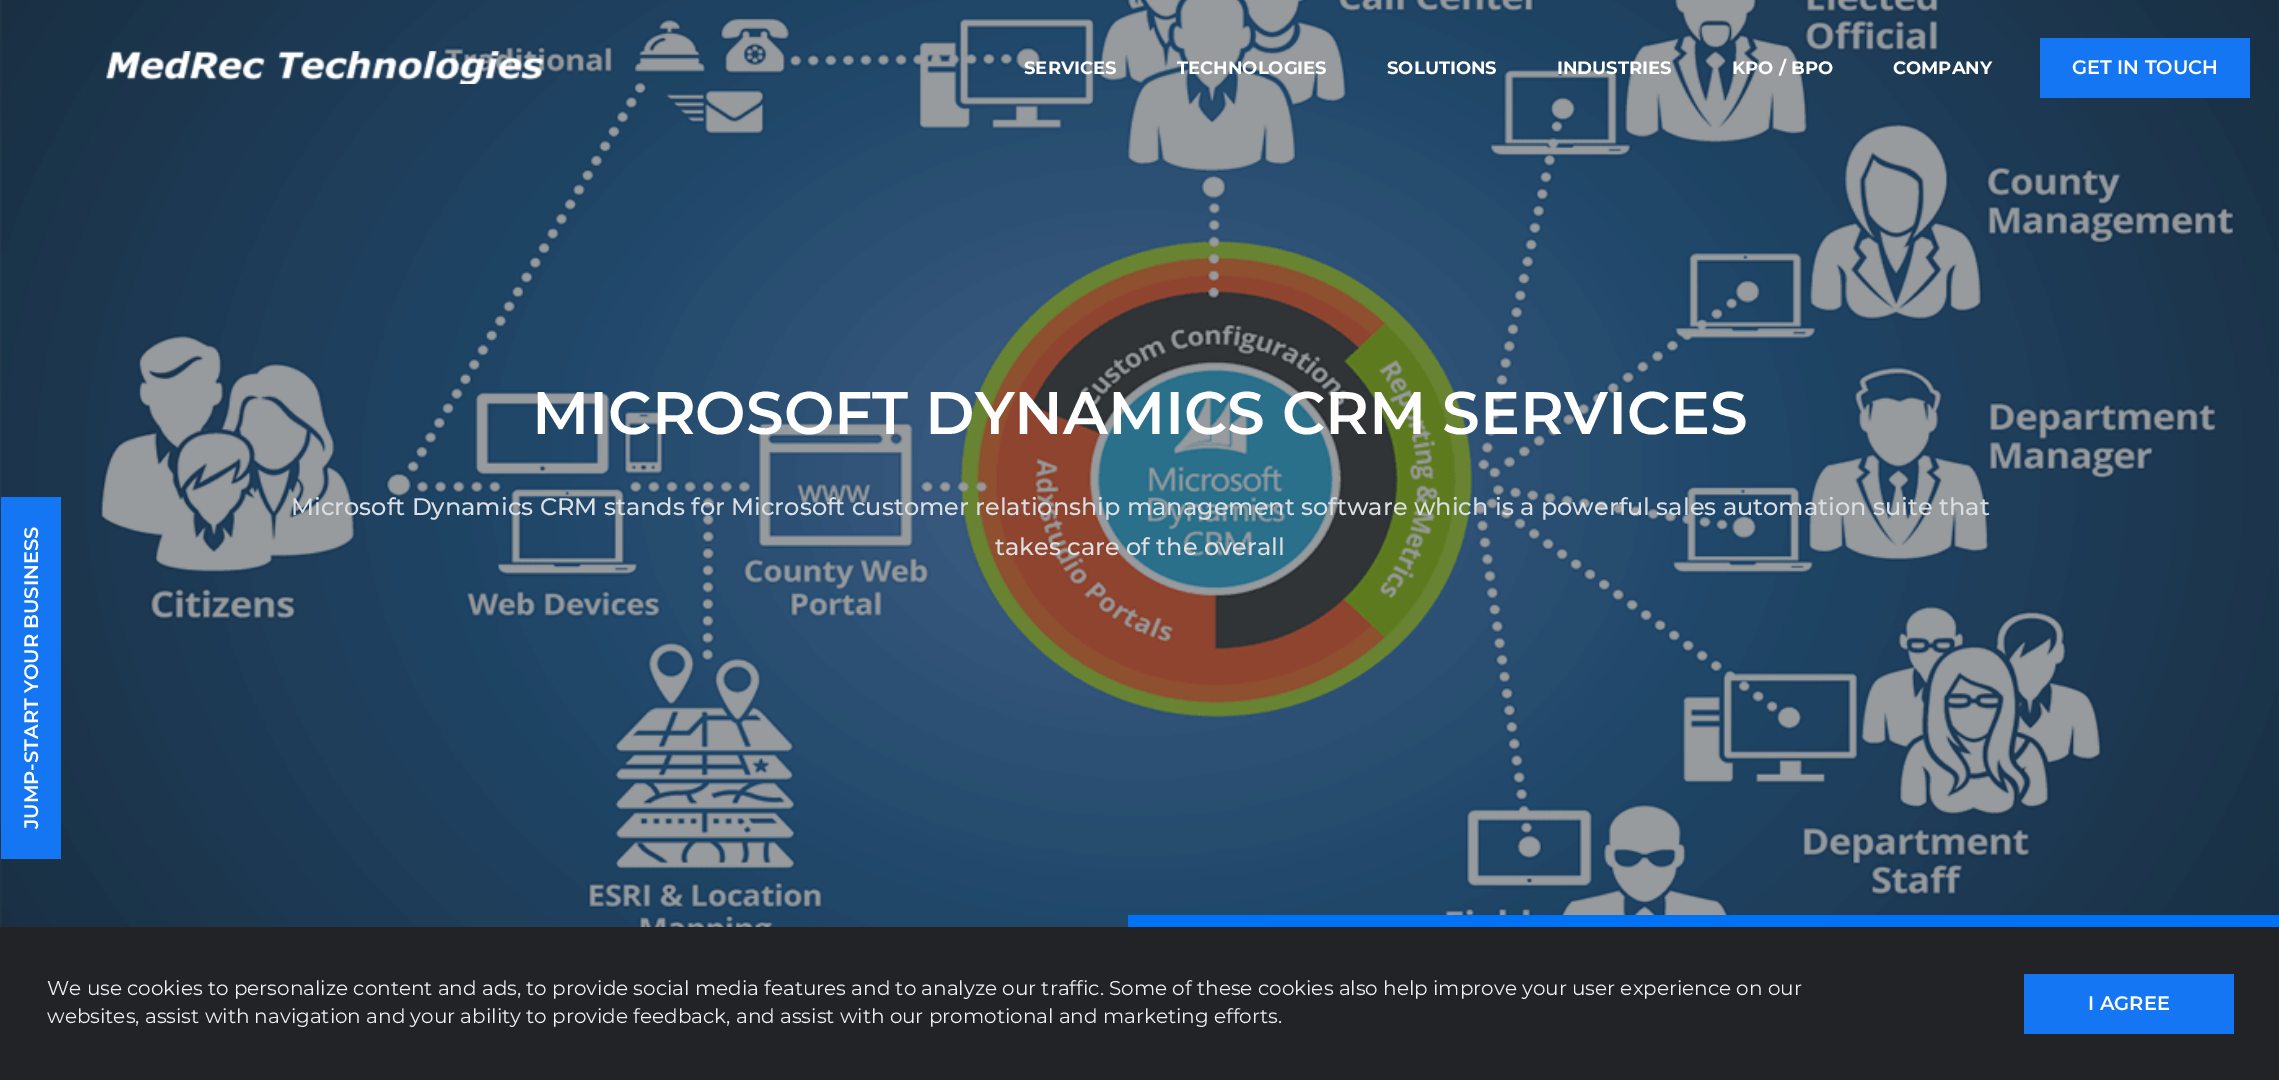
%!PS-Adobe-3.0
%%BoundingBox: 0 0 2279 1080
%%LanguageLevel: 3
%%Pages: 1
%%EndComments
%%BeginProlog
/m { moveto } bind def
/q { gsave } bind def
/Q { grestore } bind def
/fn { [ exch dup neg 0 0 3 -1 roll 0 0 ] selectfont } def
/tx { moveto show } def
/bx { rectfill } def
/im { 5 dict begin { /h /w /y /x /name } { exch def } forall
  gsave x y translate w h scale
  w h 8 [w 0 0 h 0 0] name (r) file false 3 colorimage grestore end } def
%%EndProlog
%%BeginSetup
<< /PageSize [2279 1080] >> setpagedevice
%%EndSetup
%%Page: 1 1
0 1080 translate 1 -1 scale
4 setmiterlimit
1 setgray
0 0 2279 1080 bx
(image1.raw) 0 0 2279 927 im
(image0.raw) 106 51 438 33 im
/Montserrat-Bold 18 fn
(SERVICES) 1024 74 tx
(TECHNOLOGIES) 1177 74 tx
(SOLUTIONS) 1387 74 tx
(INDUSTRIES) 1557 74 tx
(KPO / BPO) 1732 74 tx
(COMPANY) 1893 74 tx
0.078 0.463 0.949 setrgbcolor
2040 38 210 60 bx
/Montserrat-SemiBold 19.5 fn
1 setgray
(GET IN TOUCH) 2072 74 tx
/Montserrat-SemiBold 60 fn
(MICROSOFT DYNAMICS CRM SERVICES) 532 434 tx
/Montserrat-Medium 24 fn
0.855 0.875 0.89 setrgbcolor
(Microsoft Dynamics CRM stands for Microsoft customer relationship management software which is a powerful sales automation suite that) 291 515 tx
0.878 0.878 0.882 setrgbcolor
(takes care of the overall) 995 555 tx
0 0.447 0.965 setrgbcolor
1128 915 1151 12 bx
0.078 0.463 0.949 setrgbcolor
1 497 60 362 bx
/Montserrat-SemiBold 19.5 fn
1 setgray
q 38 829 translate -90 rotate 0 0 m (JUMP-START YOUR BUSINESS) show Q
0.129 0.137 0.153 setrgbcolor
0 927 2279 153 bx
/Montserrat-Regular 20 fn
0.925 0.941 0.945 setrgbcolor
(We use cookies to personalize content and ads, to provide social media features and to analyze our traffic. Some of these cookies also help improve your user experience on our) 47 995 tx
(websites, assist with navigation and your ability to provide feedback, and assist with our promotional and marketing efforts.) 47 1023 tx
0.078 0.463 0.949 setrgbcolor
2024 974 210 60 bx
/Montserrat-SemiBold 19.5 fn
1 setgray
(I AGREE) 2088 1010 tx
showpage
%%EOF
